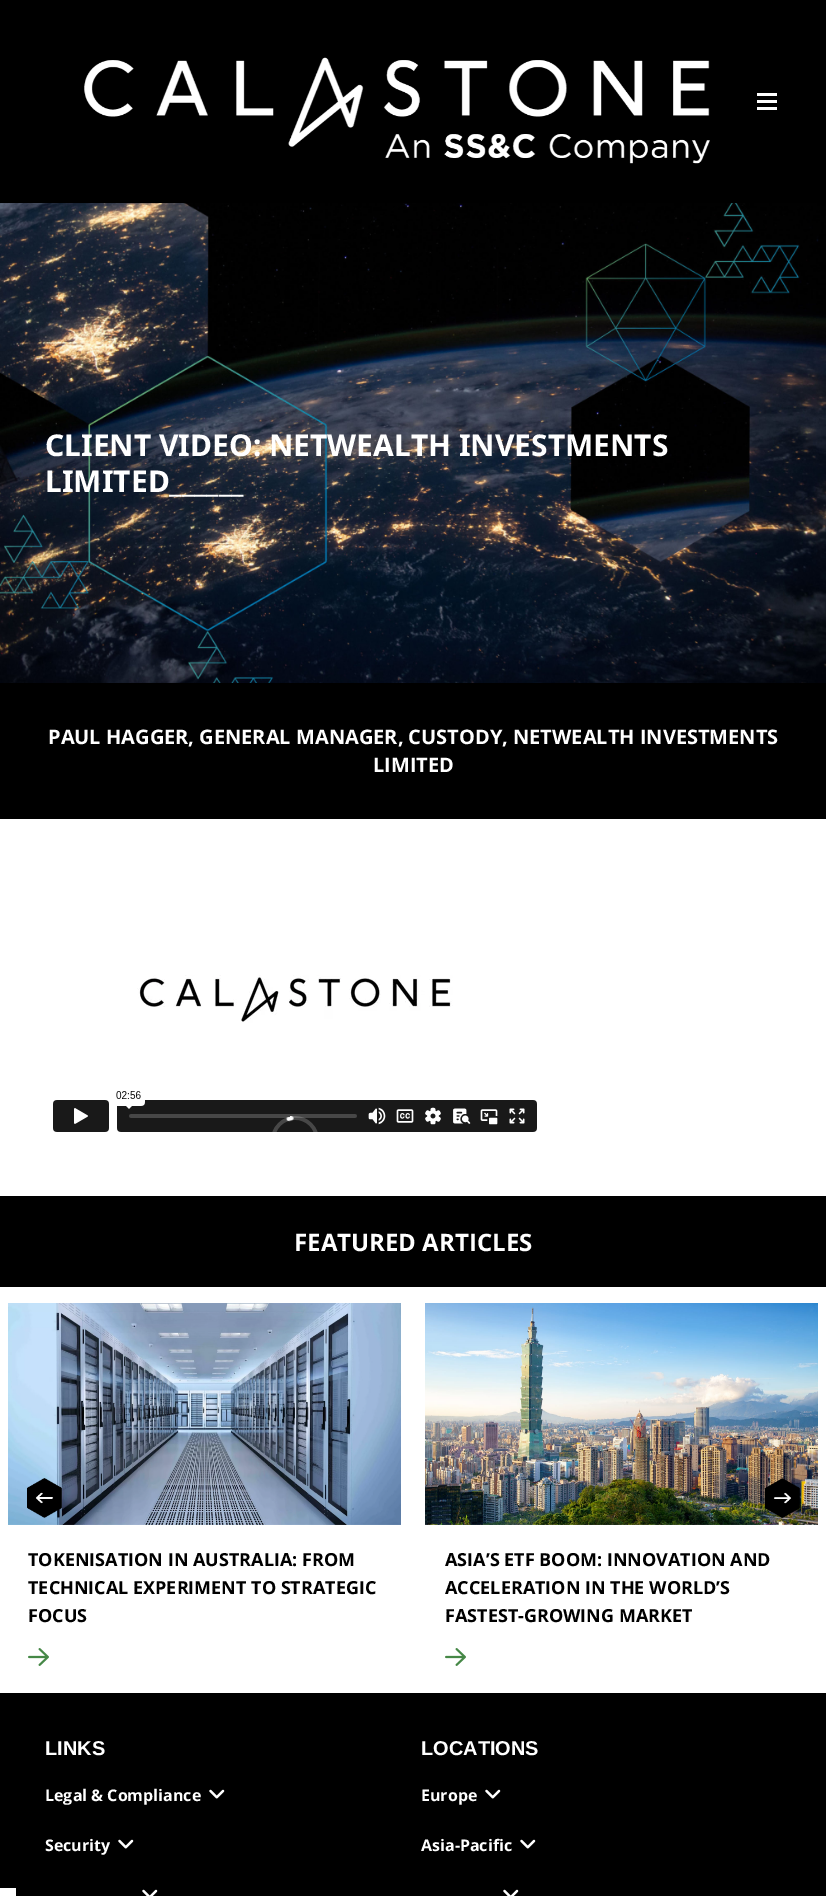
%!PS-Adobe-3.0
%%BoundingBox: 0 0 826 1896
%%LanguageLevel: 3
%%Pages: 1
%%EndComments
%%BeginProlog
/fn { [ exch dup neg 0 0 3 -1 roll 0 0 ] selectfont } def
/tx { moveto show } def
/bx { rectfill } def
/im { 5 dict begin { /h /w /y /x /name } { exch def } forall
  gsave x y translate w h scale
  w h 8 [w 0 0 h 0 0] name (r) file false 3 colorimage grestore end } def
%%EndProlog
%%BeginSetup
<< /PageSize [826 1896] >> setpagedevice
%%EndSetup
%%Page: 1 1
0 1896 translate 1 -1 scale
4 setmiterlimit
1 setgray
0 0 826 1896 bx
0 setgray
0 0 826 203 bx
(image0.raw) 84 57 626 107 im
1 setgray
757 93 20 3 bx
757 100 20 3 bx
757 107 20 3 bx
(image1.raw) 0 203 826 480 im
/NotoSans-Bold 30 fn
(CLIENT VIDEO: NETWEALTH INVESTMENTS) 45 456 tx
(LIMITED______) 45 492 tx
0 setgray
0 683 826 136 bx
/OpenSans-Bold 20 fn
1 setgray
(PAUL HAGGER, GENERAL MANAGER, CUSTODY, NETWEALTH INVESTMENTS) 48 744 tx
(LIMITED) 373 772 tx
(image2.raw) 53 975 484 157 im
0 setgray
0 1196 826 91 bx
/OpenSans-Bold 24 fn
1 setgray
(FEATURED ARTICLES) 294 1251 tx
(image5.raw) 8 1303 393 222 im
(image3.raw) 27 1478 35 40 im
(image7.raw) 425 1303 393 222 im
(image4.raw) 765 1478 35 40 im
/OpenSans-Bold 18 fn
0 setgray
(TOKENISATION IN AUSTRALIA: FROM) 28 1566 tx
(TECHNICAL EXPERIMENT TO STRATEGIC) 28 1594 tx
(FOCUS) 28 1622 tx
(image6.raw) 28 1648 21 18 im
(ASIA’S ETF BOOM: INNOVATION AND) 445 1566 tx
(ACCELERATION IN THE WORLD’S) 445 1594 tx
(FASTEST-GROWING MARKET) 445 1622 tx
(image6.raw) 445 1648 21 18 im
0 1693 826 203 bx
/LiberationSans-Bold 20 fn
1 setgray
(LINKS) 45 1755 tx
/OpenSans-Bold 16 fn
(Legal & Compliance) 45 1801 tx
(image8.raw) 209 1789 16 10 im
(Security) 45 1851 tx
(image8.raw) 118 1839 16 10 im
(image9.raw) 142 1889 16 7 im
/LiberationSans-Bold 20 fn
(LOCATIONS) 421 1755 tx
/OpenSans-Bold 16 fn
(Europe) 421 1801 tx
(image8.raw) 485 1789 16 10 im
(Asia-Pacific) 421 1851 tx
(image8.raw) 520 1839 16 10 im
(image9.raw) 503 1889 16 7 im
0 1888 16 8 bx
showpage
%%EOF
